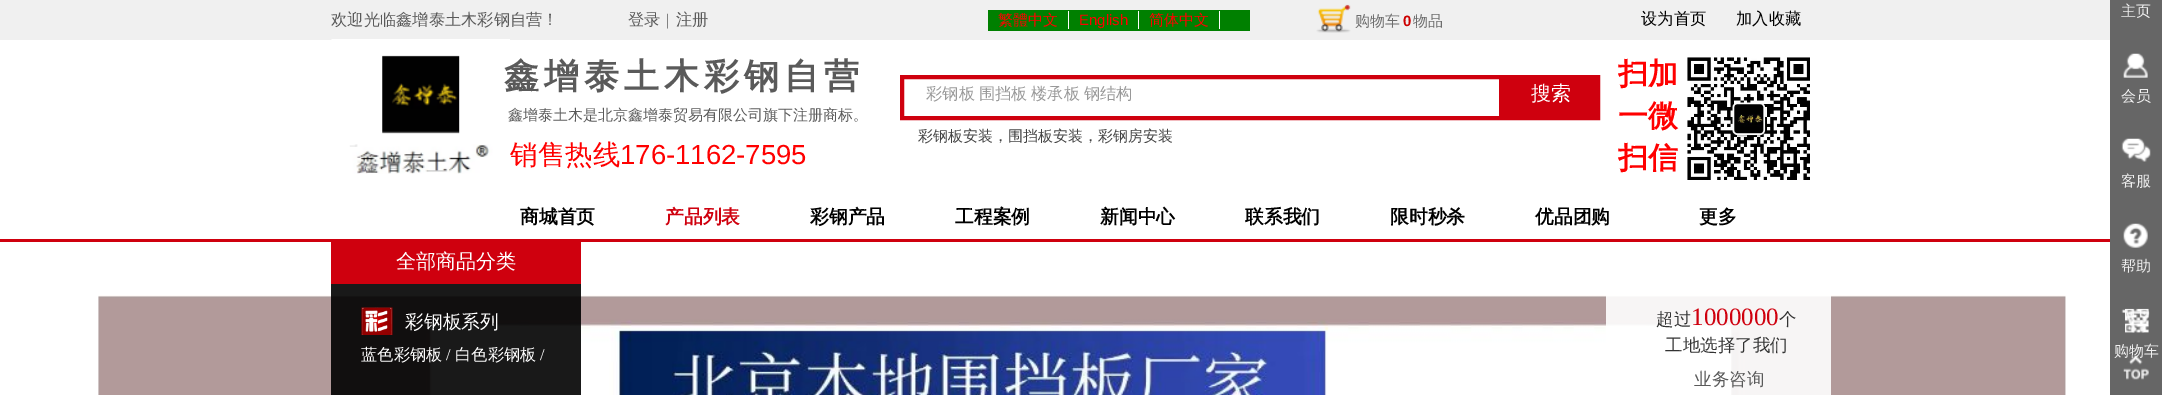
%!PS-Adobe-3.0
%%BoundingBox: 0 0 2162 395
%%LanguageLevel: 3
%%Pages: 1
%%EndComments
%%BeginProlog
/m { moveto } bind def
/q { gsave } bind def
/Q { grestore } bind def
/w { setlinewidth } bind def
/fn { [ exch dup neg 0 0 3 -1 roll 0 0 ] selectfont } def
/tx { moveto show } def
/bx { rectfill } def
/al { dup .setfillconstantalpha .setstrokeconstantalpha } def
/im { 5 dict begin { /h /w /y /x /name } { exch def } forall
  gsave x y translate w h scale
  w h 8 [w 0 0 h 0 0] name (r) file false 3 colorimage grestore end } def
%%EndProlog
%%BeginSetup
<< /PageSize [2162 395] /PageUsesTransparency true >> setpagedevice
%%EndSetup
%%Page: 1 1
0 .pushpdf14devicefilter
0 395 translate 1 -1 scale
4 setmiterlimit
1 setgray
0 0 2162 395 bx
0.941 setgray
0 0 2110 40 bx
/WenQuanYiZenHei-Medium 16.25 fn
0.353 setgray
(欢迎光临鑫增泰土木彩钢自营！) 331 25 tx
(登录) 628 25 tx
/LiberationSerif-Regular 16.25 fn
(|) 666 25 tx
/WenQuanYiZenHei-Medium 16.25 fn
(注册) 676 25 tx
(image0.raw) 1316 4 35 29 im
/WenQuanYiZenHei-Medium 15 fn
0.427 setgray
(购物车) 1355 26 tx
/LiberationSans-Bold 15 fn
0.8 0 0 setrgbcolor
(0) 1403 26 tx
/WenQuanYiZenHei-Medium 15 fn
0.427 setgray
(物品) 1413 26 tx
/WenQuanYiZenHei-Medium 16.25 fn
0 setgray
(设为首页) 1641 24 tx
(加入收藏) 1736 24 tx
0 0.502 0 setrgbcolor
988 10 262 21 bx
/WenQuanYiZenHei-Medium 15 fn
1 0 0 setrgbcolor
(繁體中文) 998 25 tx
1 setgray
1068 11 1 18 bx
/LiberationSans-Regular 15 fn
1 0 0 setrgbcolor
(English) 1079 25 tx
1 setgray
1138 11 1 18 bx
/WenQuanYiZenHei-Medium 15 fn
1 0 0 setrgbcolor
(简体中文) 1149 25 tx
1 setgray
1219 11 1 18 bx
(image1.raw) 331 39 179 135 im
/WenQuanYiZenHei-Bold 35 fn
0.353 setgray
504 88 m 5 0 (鑫增泰土木彩钢自营) ashow
0.812 0 0.055 setrgbcolor
4 w
902 77 696 41 rectstroke
q
1618 53 187 150 rectclip
/WenQuanYiZenHei-Bold 30 fn
1 0 0 setrgbcolor
(扫加) 1618 84 tx
Q
/WenQuanYiZenHei-Bold 30 fn
1 0 0 setrgbcolor
(一微) 1618 126 tx
q
1618 53 187 150 rectclip
(扫信) 1618 168 tx
Q
(image2.raw) 1687 57 123 123 im
0.812 0 0.055 setrgbcolor
1499 79 97 37 bx
/WenQuanYiZenHei-Medium 15 fn
0.353 setgray
(鑫增泰土木是北京鑫增泰贸易有限公司旗下注册商标。) 508 120 tx
/WenQuanYiZenHei-Medium 16.25 fn
0.6 setgray
926 99 m -1 0 32 (彩钢板 围挡板 楼承板 钢结构) widthshow
/WenQuanYiZenHei-Medium 20 fn
1 setgray
(搜索) 1531 100 tx
/WenQuanYiZenHei-Medium 15 fn
0.263 setgray
(彩钢板安装，围挡板安装，彩钢房安装) 918 141 tx
/WenQuanYiZenHei-Medium 27.5 fn
1 0 0 setrgbcolor
(销售热线) 510 164 tx
/LiberationSans-Regular 27.5 fn
(176-1162-7595) 620 164 tx
/WenQuanYiZenHei-Bold 18.75 fn
0 setgray
(商城首页) 520 223 tx
0.812 0 0.055 setrgbcolor
(产品列表) 665 223 tx
0 setgray
(彩钢产品) 810 223 tx
(工程案例) 955 223 tx
(新闻中心) 1100 223 tx
(联系我们) 1245 223 tx
(限时秒杀) 1390 223 tx
(优品团购) 1535 223 tx
(更多) 1699 223 tx
0.812 0 0.055 setrgbcolor
0 239 2110 3 bx
331 242 250 42 bx
/WenQuanYiZenHei-Medium 20 fn
1 setgray
(全部商品分类) 396 268 tx
(image3.raw) 98 295 1968 100 im
0.9 al
0 setgray
331 284 250 111 bx
1 setgray
1606 295 225 100 bx
1 al
(image4.raw) 361 307 32 28 im
/WenQuanYiZenHei-Medium 18.75 fn
(彩钢板系列) 405 328 tx
/WenQuanYiZenHei-Medium 16.25 fn
(蓝色彩钢板) 361 360 tx
/LiberationSerif-Regular 16.25 fn
(/) 446 360 tx
/WenQuanYiZenHei-Medium 16.25 fn
(白色彩钢板) 455 360 tx
/LiberationSerif-Regular 16.25 fn
(/) 540 360 tx
/WenQuanYiZenHei-Medium 17.5 fn
0.2 setgray
(超过) 1656 325 tx
/LiberationSerif-Regular 25 fn
0.812 0 0.055 setrgbcolor
(1000000) 1691 325 tx
/WenQuanYiZenHei-Medium 17.5 fn
0.2 setgray
(个) 1779 325 tx
(工地选择了我们) 1665 351 tx
0.353 setgray
(业务咨询) 1694 385 tx
0.4 setgray
2110 0 52 395 bx
/WenQuanYiZenHei-Medium 15 fn
0.937 setgray
(主页) 2121 16 tx
(image5.raw) 2123 53 25 25 im
(会员) 2121 101 tx
(image6.raw) 2121 138 30 24 im
(客服) 2121 186 tx
(image7.raw) 2123 223 25 25 im
(帮助) 2121 271 tx
(image9.raw) 2121 309 29 24 im
(image8.raw) 2125 308 24 25 im
(购物车) 2114 356 tx
(image10.raw) 2123 355 26 25 im
.poppdf14devicefilter showpage
%%EOF
